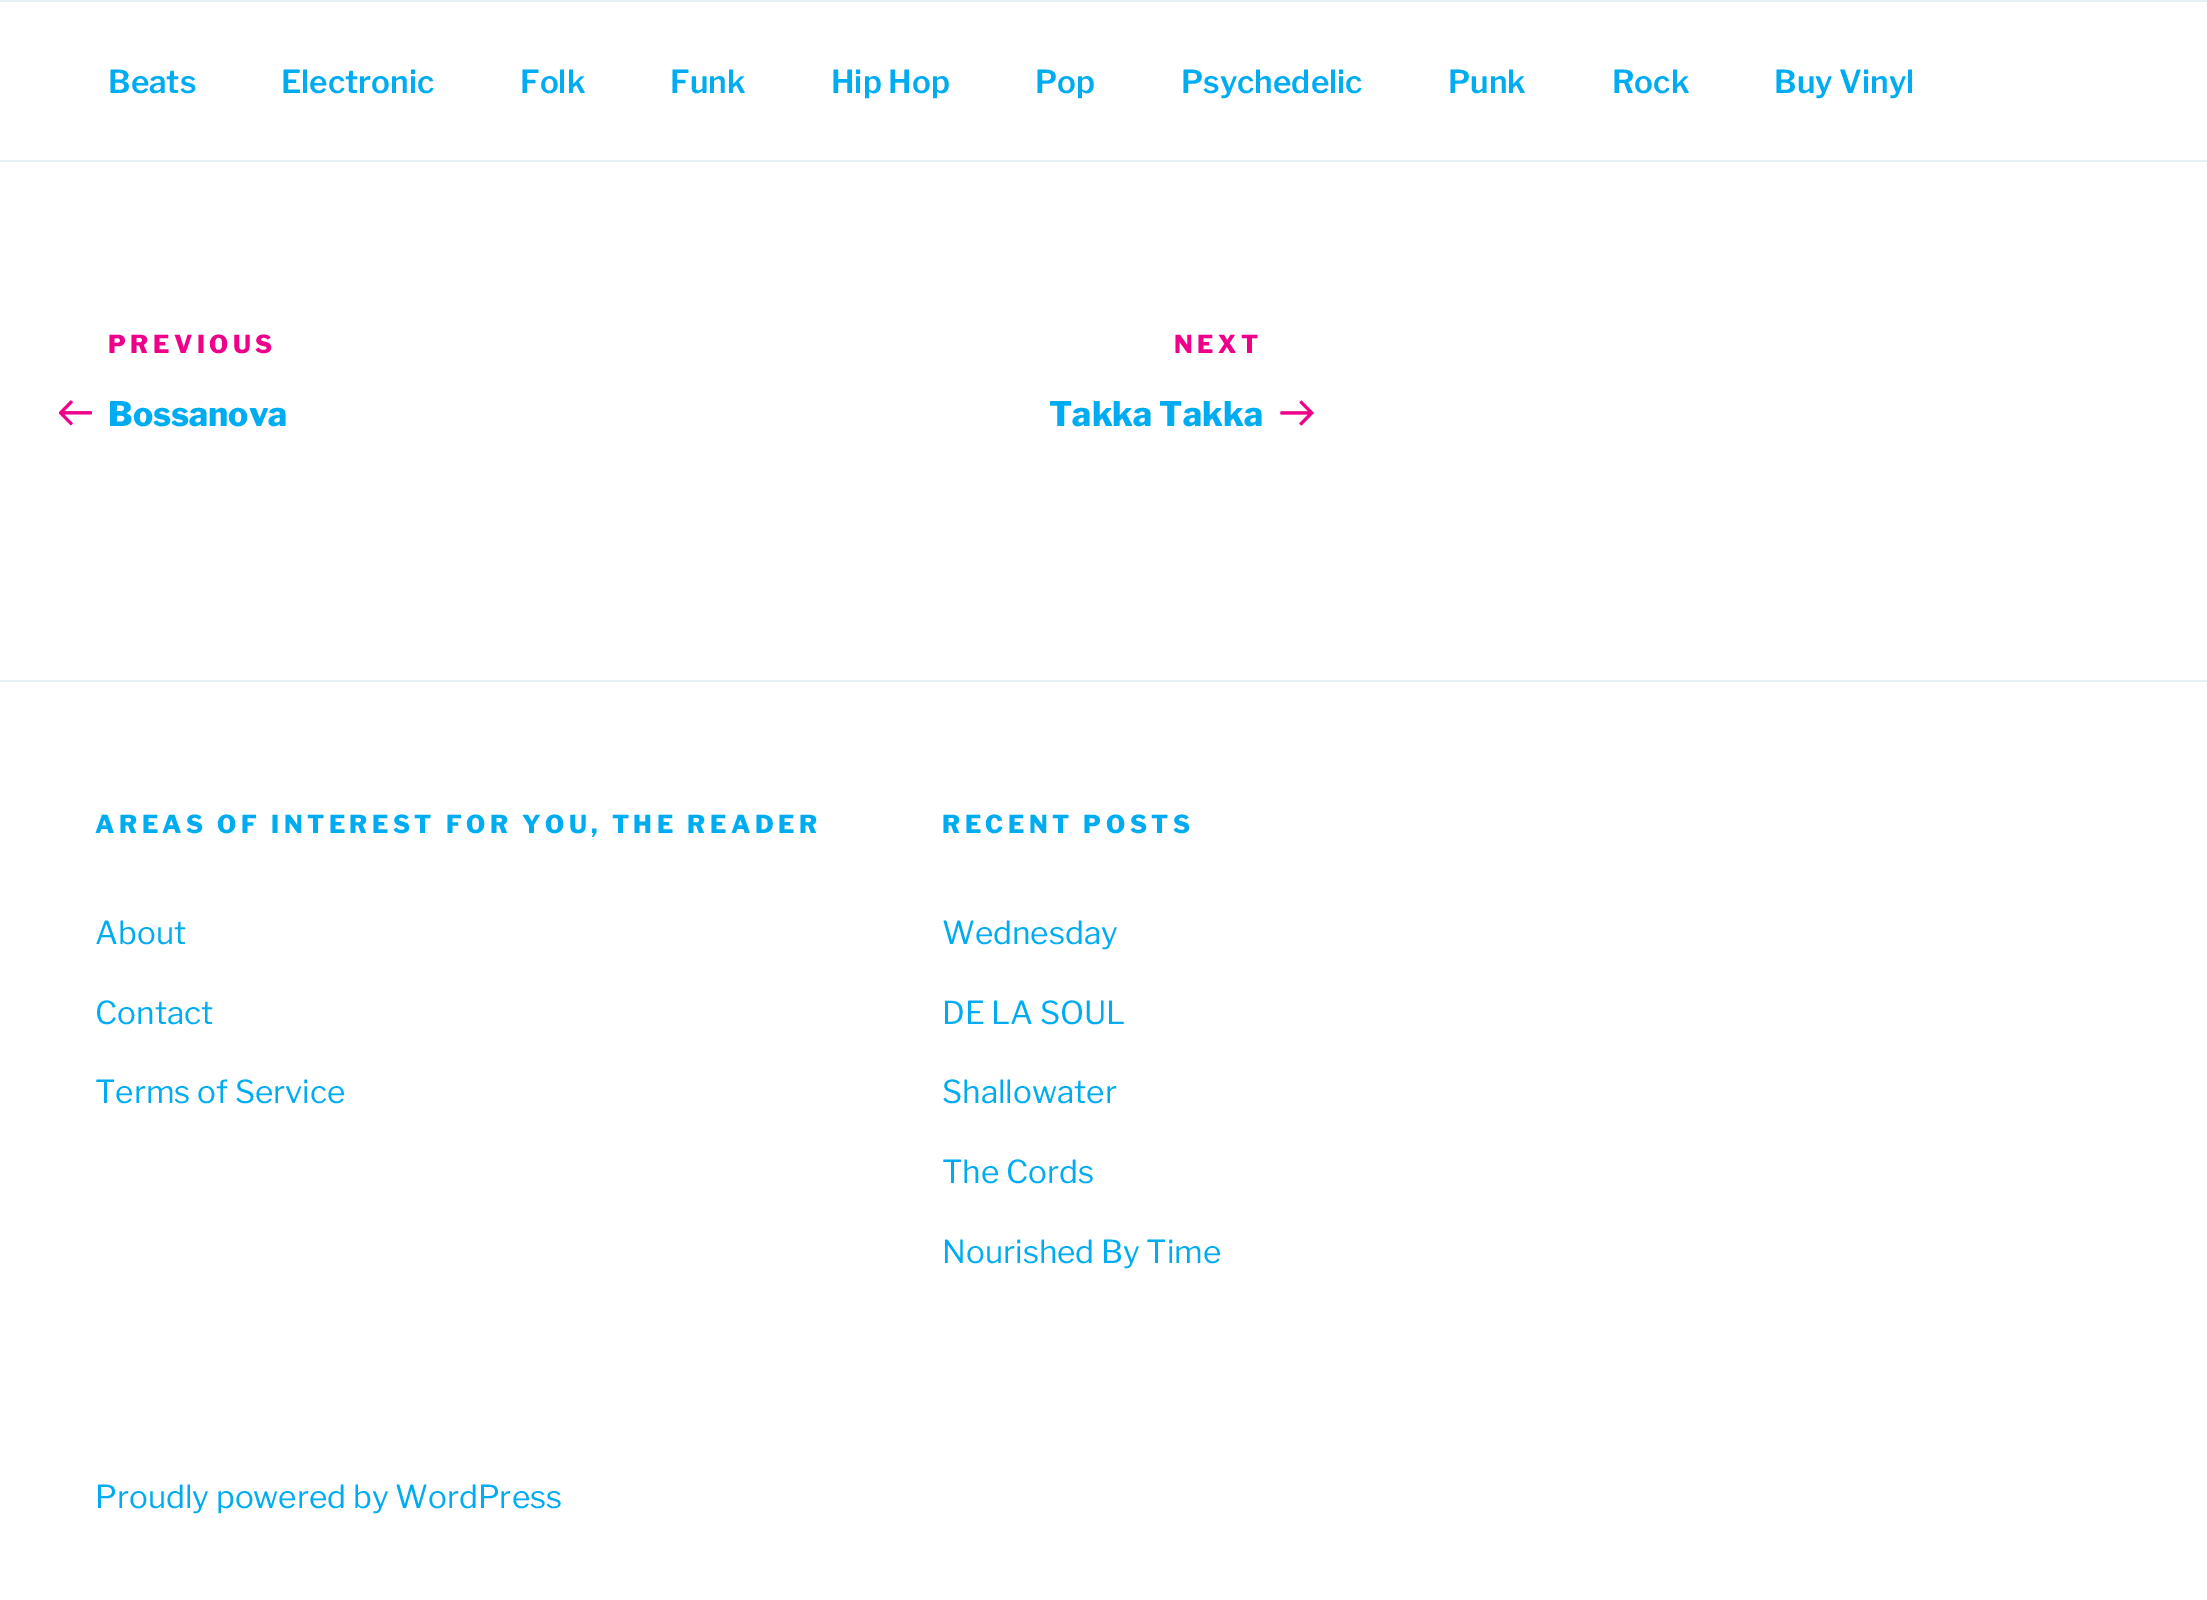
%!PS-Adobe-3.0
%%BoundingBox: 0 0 2207 1600
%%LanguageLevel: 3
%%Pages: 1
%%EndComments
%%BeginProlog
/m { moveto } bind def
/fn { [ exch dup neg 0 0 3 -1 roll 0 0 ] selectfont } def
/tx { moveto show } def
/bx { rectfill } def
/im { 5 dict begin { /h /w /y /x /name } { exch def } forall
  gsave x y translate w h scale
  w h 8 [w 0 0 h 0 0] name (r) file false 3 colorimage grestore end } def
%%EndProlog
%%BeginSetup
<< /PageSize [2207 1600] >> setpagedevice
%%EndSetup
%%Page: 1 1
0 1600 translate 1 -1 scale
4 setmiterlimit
1 setgray
0 0 2207 1600 bx
0.894 0.941 0.965 setrgbcolor
0 0 2207 2 bx
0 160 2207 2 bx
/LibreFranklin-SemiBold 31.5 fn
0 0.675 0.945 setrgbcolor
(Beats) 108 93 tx
(Electronic) 281 93 tx
(Folk) 520 93 tx
(Funk) 670 93 tx
(Hip Hop) 831 93 tx
(Pop) 1035 93 tx
(Psychedelic) 1181 93 tx
(Punk) 1448 93 tx
(Rock) 1612 93 tx
(Buy Vinyl) 1774 93 tx
/LibreFranklin-ExtraBold 24.75 fn
0.933 0 0.545 setrgbcolor
108 353 m 4.5 0 (PREVIOUS) ashow
(image0.raw) 59 400 33 26 im
/LibreFranklin-ExtraBold 33.75 fn
0 0.675 0.945 setrgbcolor
(Bossanova) 108 426 tx
/LibreFranklin-ExtraBold 24.75 fn
0.933 0 0.545 setrgbcolor
1174 353 m 4.5 0 (NEXT) ashow
/LibreFranklin-ExtraBold 33.75 fn
0 0.675 0.945 setrgbcolor
(Takka Takka) 1049 426 tx
(image1.raw) 1280 400 34 26 im
0.894 0.941 0.965 setrgbcolor
0 680 2207 2 bx
/LibreFranklin-ExtraBold 24.75 fn
0 0.675 0.945 setrgbcolor
95 833 m 4.5 0 (AREAS OF INTEREST FOR YOU, THE READER) ashow
/LibreFranklin-Regular 31.5 fn
(About) 95 944 tx
(Contact) 95 1024 tx
(Terms of Service) 95 1103 tx
/LibreFranklin-ExtraBold 24.75 fn
942 833 m 4.5 0 (RECENT POSTS) ashow
/LibreFranklin-Regular 31.5 fn
(Wednesday) 942 944 tx
(DE LA SOUL) 942 1024 tx
(Shallowater) 942 1103 tx
(The Cords) 942 1183 tx
(Nourished By Time) 942 1263 tx
(Proudly powered by WordPress) 95 1508 tx
showpage
%%EOF
